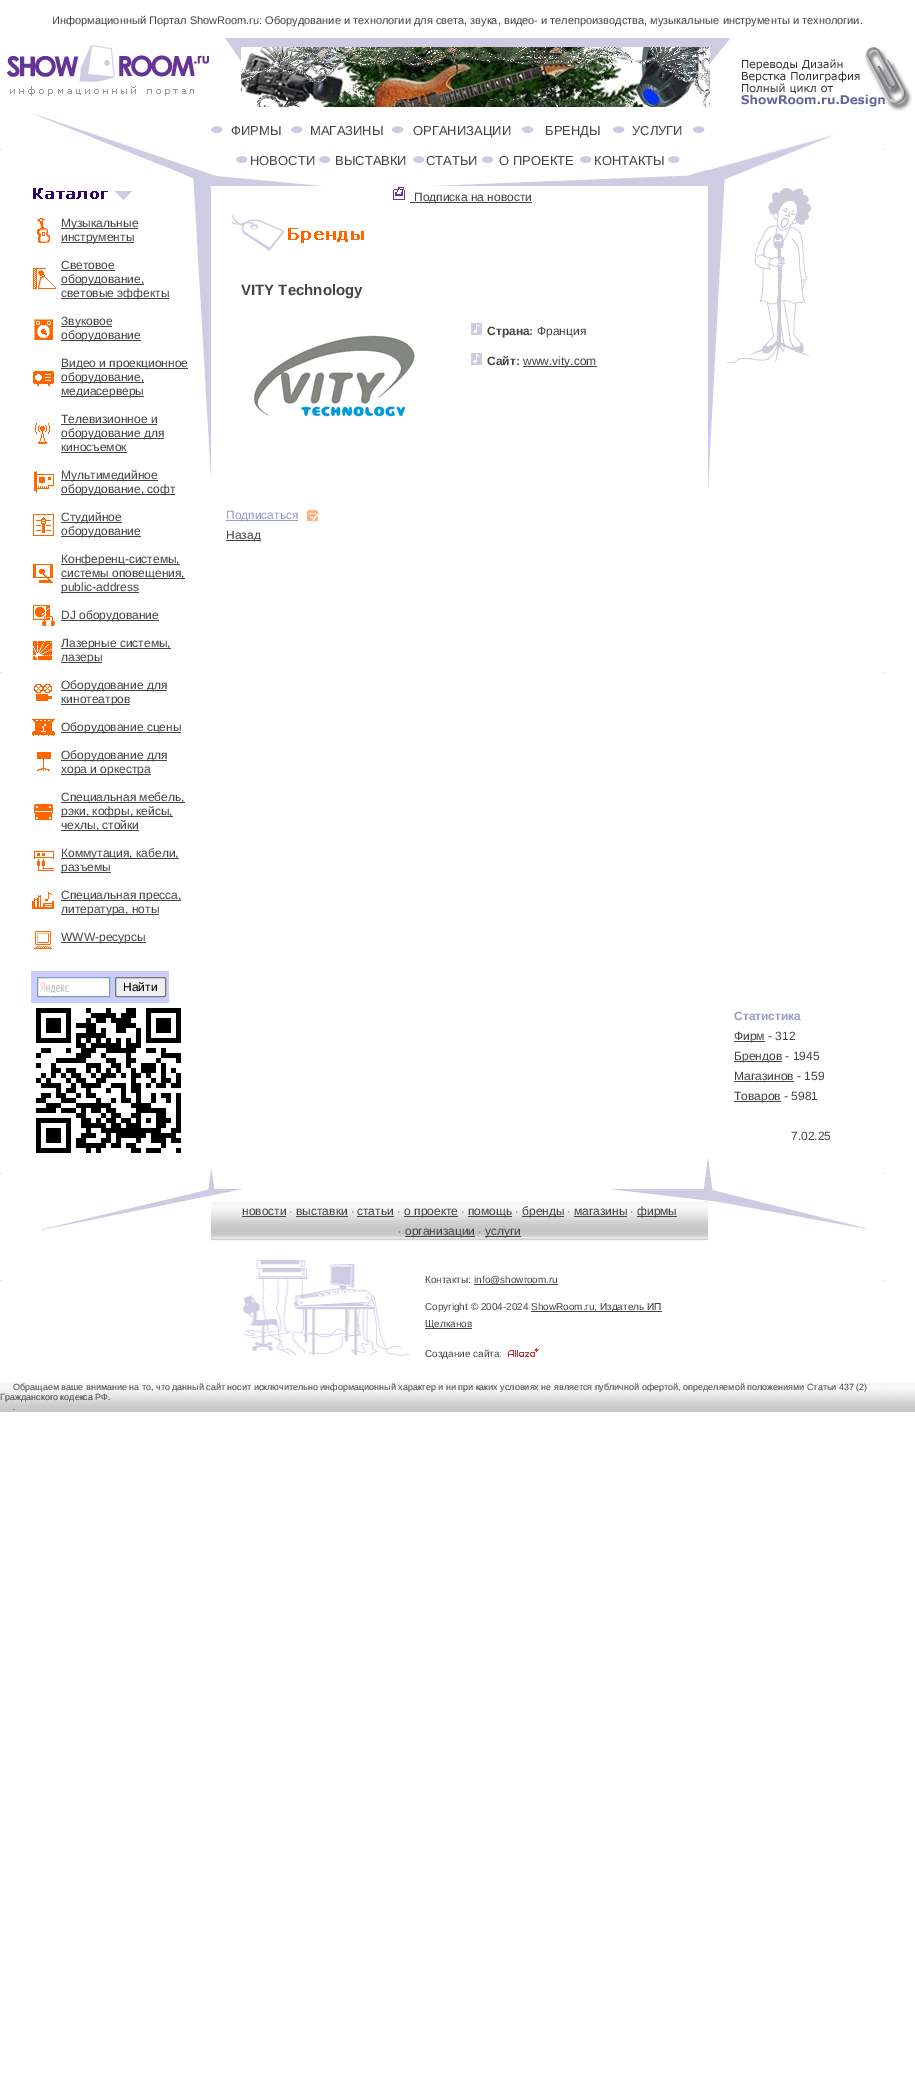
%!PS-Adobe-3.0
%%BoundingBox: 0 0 915 2090
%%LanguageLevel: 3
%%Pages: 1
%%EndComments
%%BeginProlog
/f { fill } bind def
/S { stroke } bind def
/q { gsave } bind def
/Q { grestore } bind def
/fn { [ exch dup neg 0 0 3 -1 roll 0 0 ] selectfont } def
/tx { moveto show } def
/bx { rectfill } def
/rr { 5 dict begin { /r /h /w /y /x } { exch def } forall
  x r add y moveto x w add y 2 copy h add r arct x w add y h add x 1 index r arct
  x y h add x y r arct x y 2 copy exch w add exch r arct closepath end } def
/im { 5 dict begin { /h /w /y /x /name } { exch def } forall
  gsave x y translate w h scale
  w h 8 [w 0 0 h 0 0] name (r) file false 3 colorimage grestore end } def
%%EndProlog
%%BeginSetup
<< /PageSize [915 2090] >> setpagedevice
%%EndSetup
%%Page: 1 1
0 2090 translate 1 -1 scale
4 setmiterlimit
1 setgray
0 0 915 2090 bx
/LiberationSans-Regular 11 fn
0.267 setgray
(Информационный Портал ShowRoom.ru: Оборудование и технологии для света, звука, видео- и телепроизводства, музыкальные инструменты и технологии.) 52 24 tx
(image0.raw) 7 45 202 51 im
(image1.raw) 225 38 16 23 im
0.808 0.796 0.89 setrgbcolor
241 38 469 9 bx
(image2.raw) 241 47 469 60 im
(image3.raw) 710 38 20 25 im
(image4.raw) 741 47 171 64 im
0 149 1 1 bx
(image5.raw) 32 113 179 73 im
(image6.raw) 211 126 12 7 im
/LiberationSans-Regular 13 fn
0.267 setgray
(ФИРМЫ) 231 135 tx
(image6.raw) 291 126 12 7 im
(МАГАЗИНЫ) 310 135 tx
(image6.raw) 392 126 12 7 im
(ОРГАНИЗАЦИИ) 413 135 tx
(image6.raw) 522 126 12 7 im
(БРЕНДЫ) 545 135 tx
(image6.raw) 613 126 12 7 im
(УСЛУГИ) 632 135 tx
(image6.raw) 693 126 12 7 im
(image6.raw) 236 156 12 7 im
(НОВОСТИ) 250 165 tx
(image6.raw) 319 156 12 7 im
(ВЫСТАВКИ) 335 165 tx
(image6.raw) 413 156 12 7 im
(СТАТЬИ) 426 165 tx
(image6.raw) 482 156 12 7 im
(О ПРОЕКТЕ) 499 165 tx
(image6.raw) 580 156 12 7 im
(КОНТАКТЫ) 594 165 tx
(image7.raw) 668 156 12 7 im
(image8.raw) 211 174 111 12 im
(image9.raw) 434 170 274 16 im
(image10.raw) 708 135 125 51 im
0.808 0.796 0.89 setrgbcolor
884 149 1 1 bx
0 672 1 1 bx
(image11.raw) 33 188 99 12 im
(image12.raw) 37 218 13 25 im
0.267 setgray
61 228 77 1 bx
/LiberationSans-Regular 12 fn
(Музыкальные) 61 227 tx
61 242 73 1 bx
(инструменты) 61 241 tx
(image13.raw) 33 268 23 21 im
(Световое) 61 269 tx
61 270 54 1 bx
61 284 83 1 bx
(оборудование,) 61 283 tx
61 298 108 1 bx
(световые эффекты) 61 297 tx
(image14.raw) 34 319 19 21 im
61 326 51 1 bx
(Звуковое) 61 325 tx
61 340 80 1 bx
(оборудование) 61 339 tx
(image15.raw) 33 371 21 15 im
61 368 127 1 bx
(Видео и проекционное) 61 367 tx
61 382 83 1 bx
(оборудование,) 61 381 tx
61 396 83 1 bx
(медиасерверы) 61 395 tx
(image16.raw) 35 423 15 21 im
(Телевизионное и) 61 423 tx
61 424 96 1 bx
61 438 103 1 bx
(оборудование для) 61 437 tx
(киносъемок) 61 451 tx
61 452 66 1 bx
(image17.raw) 34 471 20 22 im
61 480 97 1 bx
(Мультимедийное) 61 479 tx
61 494 114 1 bx
(оборудование, софт) 61 493 tx
(image18.raw) 33 514 21 22 im
61 522 61 1 bx
(Студийное) 61 521 tx
61 536 80 1 bx
(оборудование) 61 535 tx
(image19.raw) 33 564 20 19 im
61 564 119 1 bx
(Конференц-системы,) 61 563 tx
61 578 124 1 bx
(системы оповещения,) 61 577 tx
61 592 78 1 bx
(public-address) 61 591 tx
(image20.raw) 33 605 22 21 im
61 620 98 1 bx
(DJ оборудование) 61 619 tx
(image21.raw) 33 641 19 19 im
61 648 110 1 bx
(Лазерные системы,) 61 647 tx
61 662 41 1 bx
(лазеры) 61 661 tx
(image22.raw) 34 684 18 17 im
61 690 106 1 bx
(Оборудование для) 61 689 tx
61 704 69 1 bx
(кинотеатров) 61 703 tx
(image23.raw) 32 719 23 17 im
61 732 120 1 bx
(Оборудование сцены) 61 731 tx
(image24.raw) 37 752 14 19 im
61 760 106 1 bx
(Оборудование для) 61 759 tx
61 774 90 1 bx
(хора и оркестра) 61 773 tx
(image25.raw) 34 804 19 16 im
61 802 124 1 bx
(Специальная мебель,) 61 801 tx
61 816 112 1 bx
(рэки, кофры, кейсы,) 61 815 tx
61 830 78 1 bx
(чехлы, стойки) 61 829 tx
(image26.raw) 34 851 20 20 im
61 858 118 1 bx
(Коммутация, кабели,) 61 857 tx
61 872 50 1 bx
(разъемы) 61 871 tx
(image27.raw) 32 892 22 17 im
61 900 120 1 bx
(Специальная пресса,) 61 899 tx
61 914 98 1 bx
(литература, ноты) 61 913 tx
(image28.raw) 34 931 18 18 im
61 942 85 1 bx
(WWW-ресурсы) 61 941 tx
0.8 0.8 1 setrgbcolor
31 971 138 32 bx
1 setgray
38 978 71 18 bx
(image29.raw) 40 982 29 11 im
0.498 0.616 0.725 setrgbcolor
37.5 977.5 72 19 rectstroke
0.937 setgray
115.5 977.5 50 19 1.5 rr q f Q
0.463 setgray
S
0 setgray
(Найти) 123 991 tx
(image30.raw) 36 1008 145 145 im
(image31.raw) 193 186 18 291 im
(image32.raw) 393 187 12 13 im
0.267 setgray
410 202 122 1 bx
(Подписка на новости) 414 201 tx
(image33.raw) 232 215 132 36 im
/LiberationSans-Bold 15 fn
(VITY Technology) 241 295 tx
(image34.raw) 254 335 161 82 im
(image35.raw) 471 323 11 12 im
/LiberationSans-Bold 12 fn
(Страна:) 487 335 tx
/LiberationSans-Regular 12 fn
(Франция) 537 335 tx
(image35.raw) 471 353 11 12 im
/LiberationSans-Bold 12 fn
(Сайт:) 487 365 tx
523 366 74 1 bx
/LiberationSans-Regular 12 fn
(www.vity.com) 523 365 tx
0.6 0.6 0.8 setrgbcolor
226 520 72 1 bx
(Подписаться) 226 519 tx
(image36.raw) 307 510 12 12 im
0.267 setgray
226 540 34 1 bx
(Назад) 226 539 tx
(image37.raw) 708 186 16 303 im
0.808 0.796 0.89 setrgbcolor
884 672 1 1 bx
(image38.raw) 727 188 84 175 im
/LiberationSans-Bold 12 fn
0.6 0.6 0.8 setrgbcolor
(Статистика) 734 1020 tx
0.267 setgray
734 1041 31 1 bx
/LiberationSans-Regular 12 fn
(Фирм - 312) 734 1040 tx
734 1061 48 1 bx
(Брендов - 1945) 734 1060 tx
(Магазинов - 159) 734 1080 tx
734 1081 60 1 bx
734 1101 47 1 bx
(Товаров - 5981) 734 1100 tx
(7.02.25) 791 1140 tx
0.808 0.796 0.89 setrgbcolor
0 1173 1 1 bx
(image39.raw) 208 1170 3 19 im
(image40.raw) 211 1169 4 20 im
(image41.raw) 704 1158 4 31 im
(image42.raw) 708 1158 5 31 im
884 1173 1 1 bx
0 1280 1 1 bx
(image43.raw) 42 1189 169 41 im
(image44.raw) 211 1189 31 7 im
(image45.raw) 611 1189 97 12 im
(image46.raw) 211 1201 497 40 im
0.267 setgray
(новости) 242 1215 tx
242 1216 44 1 bx
/LiberationSans-Regular 11 fn
(·) 289 1215 tx
/LiberationSans-Regular 12 fn
(выставки) 296 1215 tx
296 1216 52 1 bx
/LiberationSans-Regular 11 fn
(·) 351 1215 tx
/LiberationSans-Regular 12 fn
(статьи) 357 1215 tx
357 1216 37 1 bx
/LiberationSans-Regular 11 fn
(·) 397 1215 tx
404 1216 54 1 bx
/LiberationSans-Regular 12 fn
(о проекте) 404 1215 tx
/LiberationSans-Regular 11 fn
(·) 461 1215 tx
468 1216 44 1 bx
/LiberationSans-Regular 12 fn
(помощь) 468 1215 tx
/LiberationSans-Regular 11 fn
(·) 515 1215 tx
522 1216 42 1 bx
/LiberationSans-Regular 12 fn
(бренды) 522 1215 tx
/LiberationSans-Regular 11 fn
(·) 567 1215 tx
/LiberationSans-Regular 12 fn
(магазины) 574 1215 tx
574 1216 53 1 bx
/LiberationSans-Regular 11 fn
(·) 630 1215 tx
637 1216 40 1 bx
/LiberationSans-Regular 12 fn
(фирмы) 637 1215 tx
/LiberationSans-Regular 11 fn
(·) 398 1235 tx
405 1236 70 1 bx
/LiberationSans-Regular 12 fn
(организации) 405 1235 tx
/LiberationSans-Regular 11 fn
(·) 478 1235 tx
485 1236 36 1 bx
/LiberationSans-Regular 12 fn
(услуги) 485 1235 tx
(image47.raw) 243 1260 166 96 im
/LiberationSans-Regular 10 fn
(Контакты:) 425 1283 tx
474 1284 84 1 bx
(info@showroom.ru) 474 1283 tx
(Copyright © 2004-2024) 425 1310 tx
531 1311 131 1 bx
(ShowRoom.ru, Издатель ИП) 531 1310 tx
425 1328 47 1 bx
(Щелканов) 425 1327 tx
(Создание сайта:) 425 1357 tx
(image48.raw) 508 1348 31 9 im
(image49.raw) 708 1189 158 40 im
0.808 0.796 0.89 setrgbcolor
884 1280 1 1 bx
(image50.raw) 0 1382 915 30 im
/LiberationSans-Regular 9 fn
0.267 setgray
(Обращаем ваше внимание на то, что данный сайт носит исключительно информационный характер и ни при каких условиях не является публичной офертой, определяемой положениями Статьи 437 \(2\)) 13 1390 tx
(Гражданского кодекса РФ.) 0 1400 tx
(.) 13 1410 tx
showpage
%%EOF
